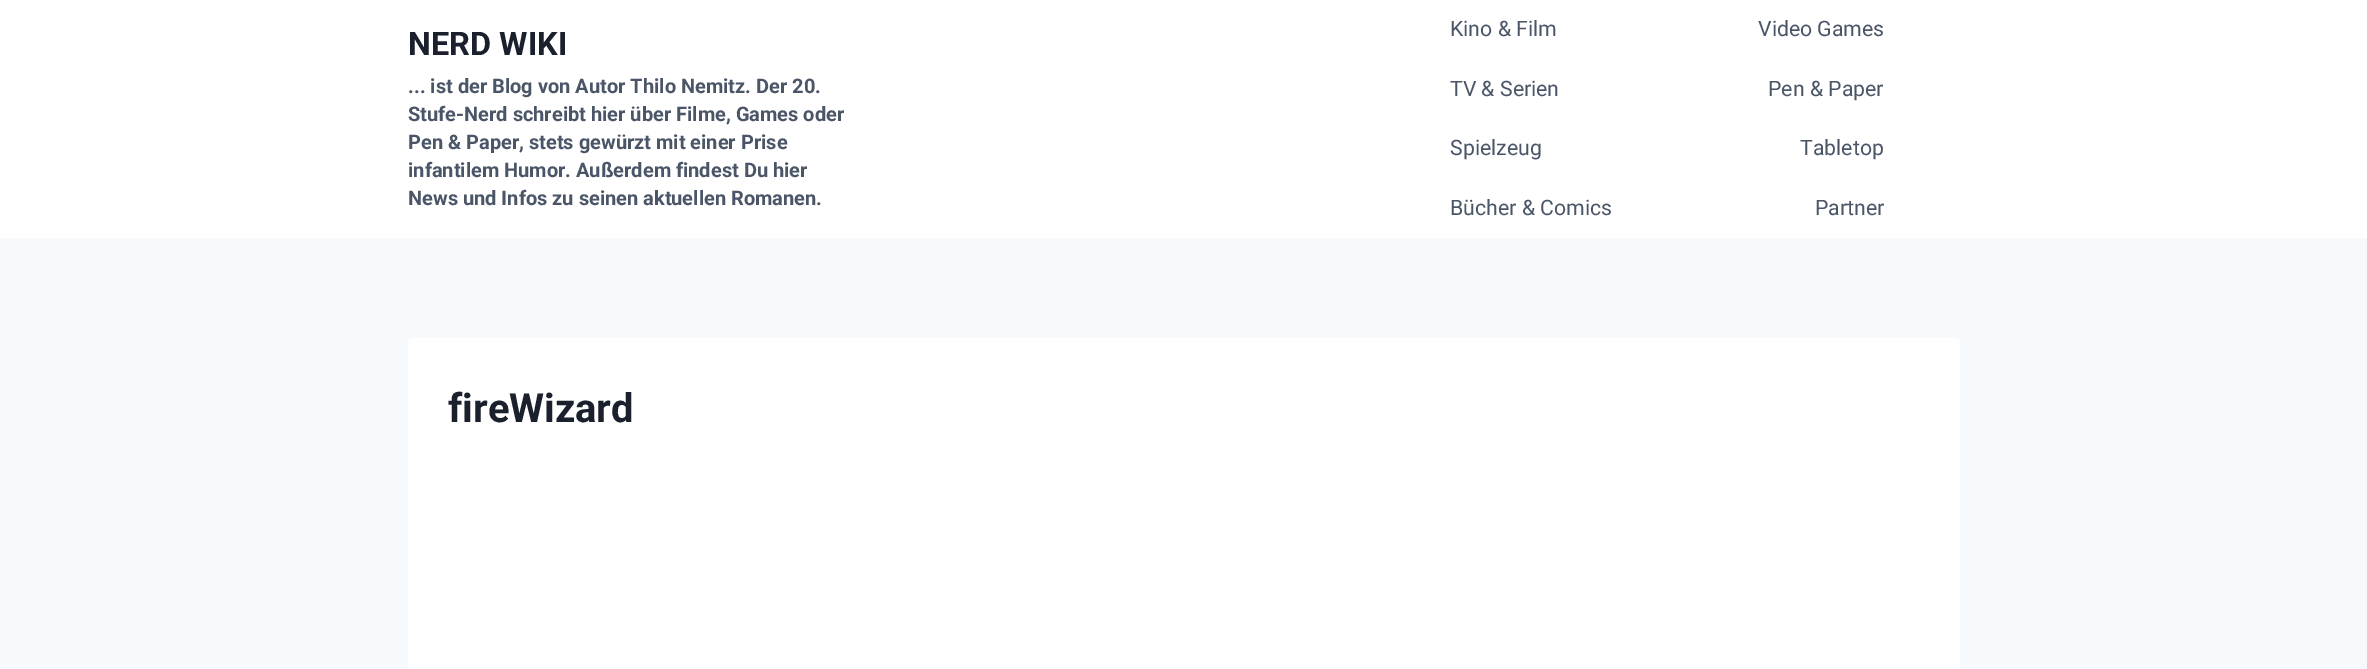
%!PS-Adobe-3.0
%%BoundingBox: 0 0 2367 669
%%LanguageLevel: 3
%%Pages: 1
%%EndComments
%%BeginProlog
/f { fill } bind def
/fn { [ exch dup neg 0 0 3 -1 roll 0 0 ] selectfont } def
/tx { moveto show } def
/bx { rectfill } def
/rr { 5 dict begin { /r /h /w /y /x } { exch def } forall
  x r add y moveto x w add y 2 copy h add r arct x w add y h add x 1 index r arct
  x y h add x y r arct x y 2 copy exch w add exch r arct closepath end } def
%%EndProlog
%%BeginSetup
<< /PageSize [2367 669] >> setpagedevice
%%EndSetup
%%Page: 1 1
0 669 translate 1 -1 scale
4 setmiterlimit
0.969 0.98 0.988 setrgbcolor
0 0 2367 669 bx
1 setgray
0 0 2367 238 bx
/Roboto-Bold 32.5 fn
0.102 0.125 0.173 setrgbcolor
(NERD WIKI) 408 55 tx
/Roboto-Bold 20 fn
0.29 0.333 0.408 setrgbcolor
(... ist der Blog von Autor Thilo Nemitz. Der 20.) 408 93 tx
(Stufe-Nerd schreibt hier über Filme, Games oder) 408 121 tx
(Pen & Paper, stets gewürzt mit einer Prise) 408 149 tx
(infantilem Humor. Außerdem findest Du hier) 408 177 tx
(News und Infos zu seinen aktuellen Romanen.) 408 205 tx
/Roboto-Regular 21.25 fn
(Kino & Film) 1450 36 tx
(Video Games) 1758 36 tx
(TV & Serien) 1450 96 tx
(Pen & Paper) 1768 96 tx
(Spielzeug) 1450 155 tx
(Tabletop) 1800 155 tx
(Bücher & Comics) 1450 215 tx
(Partner) 1815 215 tx
1 setgray
408 338 1552 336 5 rr f
/Roboto-Bold 40 fn
0.102 0.125 0.173 setrgbcolor
(fireWizard) 448 422 tx
showpage
%%EOF
